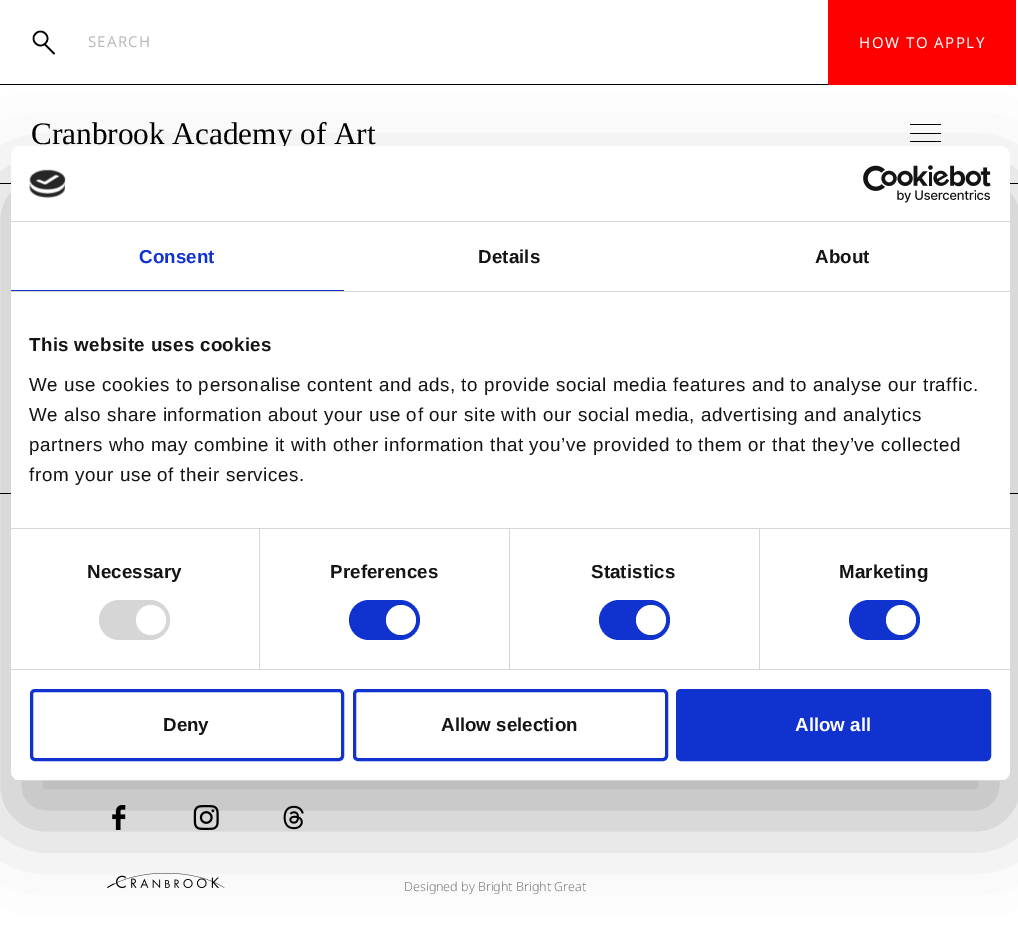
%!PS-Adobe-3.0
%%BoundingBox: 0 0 1018 927
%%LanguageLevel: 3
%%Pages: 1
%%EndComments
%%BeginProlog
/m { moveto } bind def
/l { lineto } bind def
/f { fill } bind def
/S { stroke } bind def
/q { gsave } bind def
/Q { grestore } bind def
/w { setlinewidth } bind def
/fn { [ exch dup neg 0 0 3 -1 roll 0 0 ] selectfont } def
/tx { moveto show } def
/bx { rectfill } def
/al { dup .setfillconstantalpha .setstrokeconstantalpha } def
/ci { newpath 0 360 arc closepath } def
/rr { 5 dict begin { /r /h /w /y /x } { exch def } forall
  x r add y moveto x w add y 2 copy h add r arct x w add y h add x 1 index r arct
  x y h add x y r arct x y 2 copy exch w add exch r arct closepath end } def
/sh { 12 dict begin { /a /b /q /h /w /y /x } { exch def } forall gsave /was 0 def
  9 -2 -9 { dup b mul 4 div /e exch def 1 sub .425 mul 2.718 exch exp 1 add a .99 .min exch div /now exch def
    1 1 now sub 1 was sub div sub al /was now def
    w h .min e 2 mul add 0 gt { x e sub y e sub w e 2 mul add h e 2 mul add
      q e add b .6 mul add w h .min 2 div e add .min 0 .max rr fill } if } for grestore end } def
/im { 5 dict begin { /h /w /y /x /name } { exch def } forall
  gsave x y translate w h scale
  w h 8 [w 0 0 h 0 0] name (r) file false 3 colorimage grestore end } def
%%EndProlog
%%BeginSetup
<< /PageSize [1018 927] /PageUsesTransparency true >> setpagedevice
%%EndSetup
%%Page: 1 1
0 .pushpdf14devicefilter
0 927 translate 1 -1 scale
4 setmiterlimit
1 setgray
0 0 1018 927 bx
0 setgray
0 84 828 1 bx
1.6 w
40.5 38.5 7 ci S
44.5 44 m 54.5 54 l S
/NotoSans-Regular 15 fn
0.729 setgray
88 47 m 1.25 0 (SEARCH) ashow
1 0 0 setrgbcolor
828 0 188 85 bx
1 setgray
859 48 m 1.5 0 (HOW TO APPLY) ashow
0 setgray
0 183 1018 1 bx
/LiberationSerif-Regular 31.25 fn
(Cranbrook Academy of Art) 31 144 tx
910 124 31 1 bx
910 133 31 1 bx
910 141 31 1 bx
0 493 1018 1 bx
(image0.raw) 112 805 14 25 im
(image1.raw) 193 805 26 25 im
(image2.raw) 283 805 21 25 im
(image3.raw) 107 872 118 17 im
/NotoSans-Light 12.5 fn
0.486 setgray
(Designed by Bright Bright Great) 404 891 tx
0 setgray
11 186 999 635 10 42.5 0.3 sh
1 setgray
11 146 999 635 10 rr f
0.839 setgray
11 221 999 1 bx
(image4.raw) 29 169 37 29 im
(image5.raw) 863 165 128 38 im
11 291 999 1 bx
0.063 0.196 0.812 setrgbcolor
11 290 333 1 bx
/LiberationSans-Bold 18.75 fn
139 263 m 0.1 0 (Consent) ashow
0.078 setgray
478 263 m 0.1 0 (Details) ashow
815 263 m 0.1 0 (About) ashow
0.839 setgray
11 528 999 1 bx
0.078 setgray
29 351 m 0.3 0 (This website uses cookies) ashow
/LiberationSans-Regular 18.75 fn
29 391 m 0.62 0 (We use cookies to personalise content and ads, to provide social media features and to analyse our traffic.) ashow
29 421 m 0.62 0 (We also share information about your use of our site with our social media, advertising and analytics) ashow
29 451 m 0.62 0 (partners who may combine it with other information that you’ve provided to them or that they’ve collected) ashow
29 481 m 0.62 0 (from your use of their services.) ashow
0.839 setgray
11 669 999 1 bx
259 529 1 140 bx
/LiberationSans-Bold 18.75 fn
0.078 setgray
87 578 m 0.1 0 (Necessary) ashow
0.839 setgray
99 600 71 40 20 rr f
1 setgray
151 620 15 ci f
0.839 setgray
509 529 1 140 bx
0.078 setgray
330 578 m 0.1 0 (Preferences) ashow
0.063 0.196 0.812 setrgbcolor
349 600 71 40 20 rr f
1 setgray
401 620 15 ci f
0.839 setgray
759 529 1 140 bx
0.078 setgray
591 578 m 0.1 0 (Statistics) ashow
0.063 0.196 0.812 setrgbcolor
599 600 71 40 20 rr f
1 setgray
651 620 15 ci f
0.078 setgray
839 578 m 0.1 0 (Marketing) ashow
0.063 0.196 0.812 setrgbcolor
849 600 71 40 20 rr f
1 setgray
901 620 15 ci f
q
11 146 999 635 10 rr clip newpath
0.839 setgray
11 780 999 1 bx
Q
0.063 0.196 0.812 setrgbcolor
3 w
31.5 690.5 311 69 3.5 rr S
0.078 setgray
(Deny) 163 731 tx
0.063 0.196 0.812 setrgbcolor
354.5 690.5 312 69 3.5 rr S
0.078 setgray
(Allow selection) 441 731 tx
0.063 0.196 0.812 setrgbcolor
677.5 690.5 312 69 3.5 rr q f Q
S
1 setgray
(Allow all) 795 731 tx
.poppdf14devicefilter showpage
%%EOF
